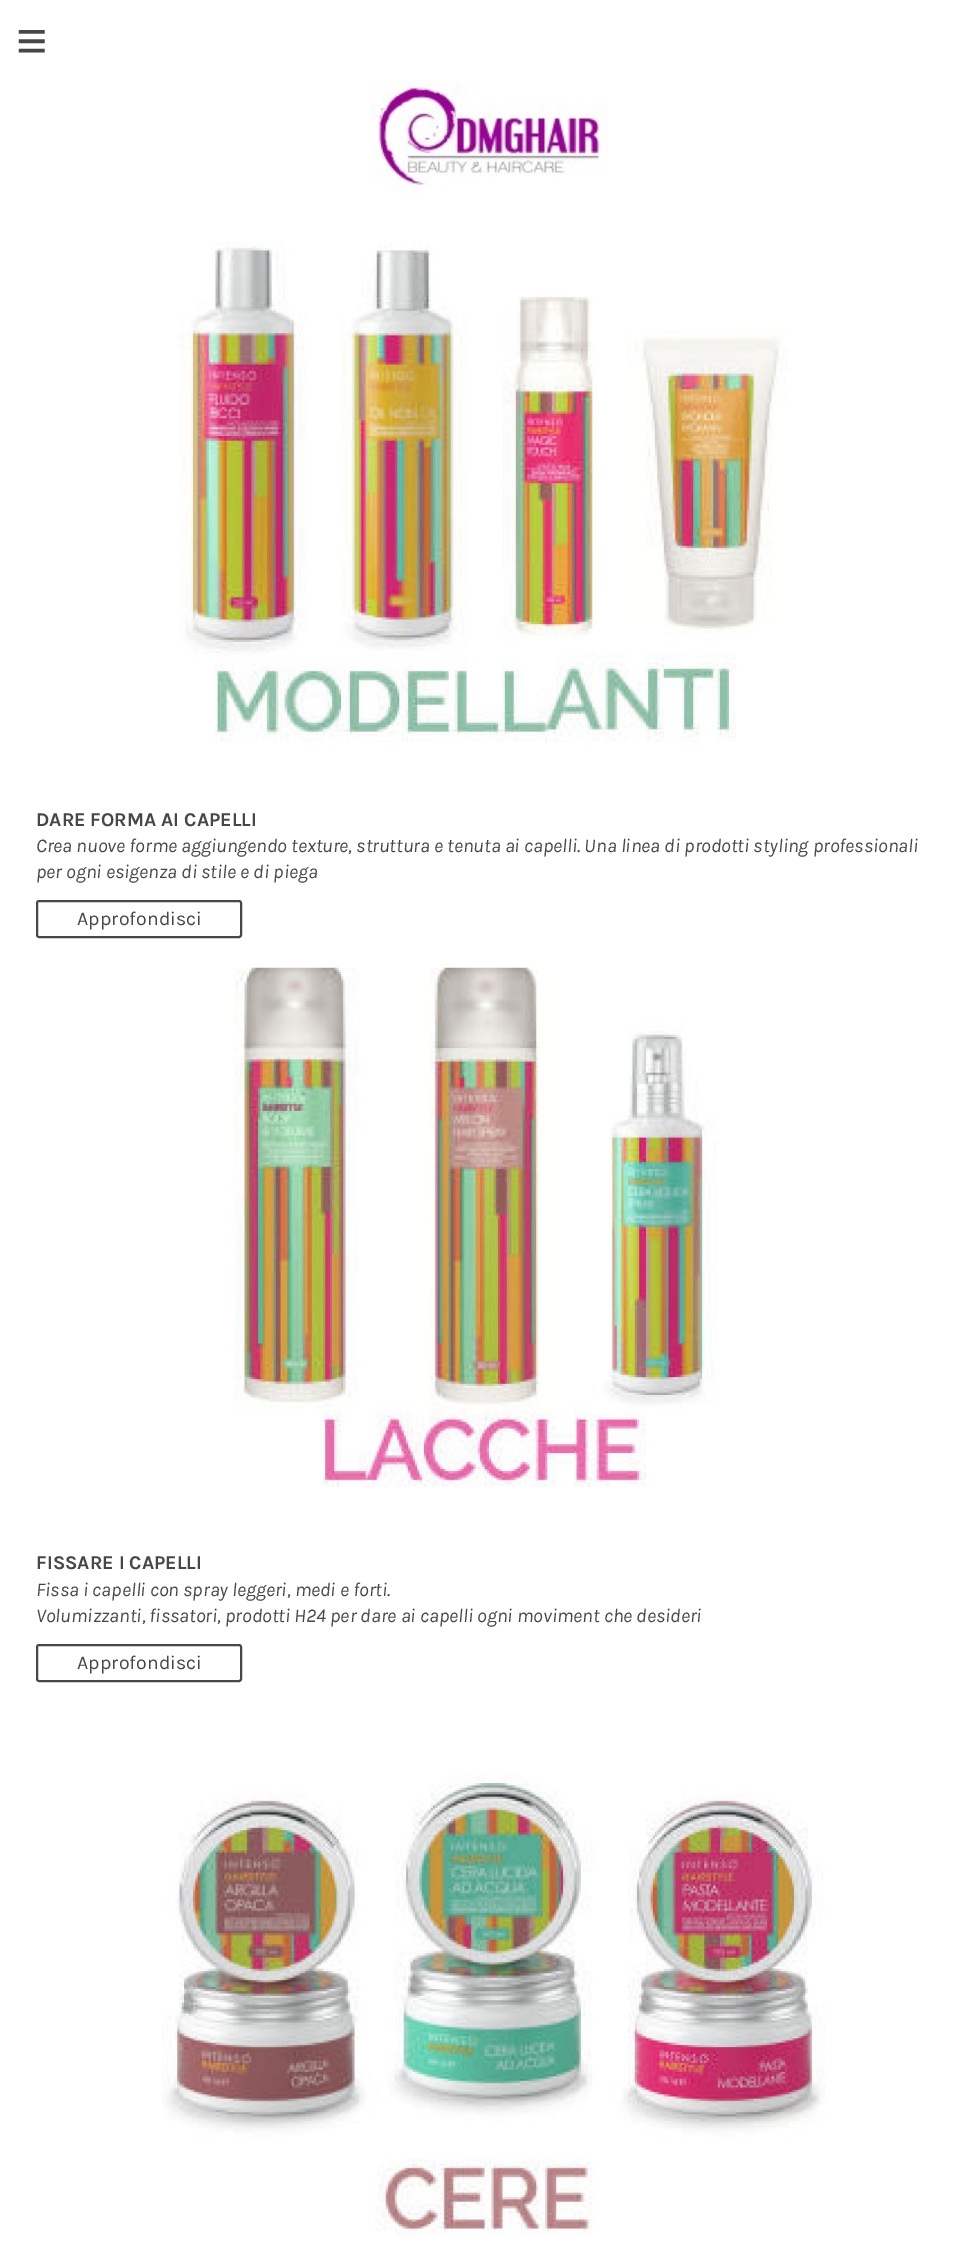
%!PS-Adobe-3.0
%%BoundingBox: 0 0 978 2254
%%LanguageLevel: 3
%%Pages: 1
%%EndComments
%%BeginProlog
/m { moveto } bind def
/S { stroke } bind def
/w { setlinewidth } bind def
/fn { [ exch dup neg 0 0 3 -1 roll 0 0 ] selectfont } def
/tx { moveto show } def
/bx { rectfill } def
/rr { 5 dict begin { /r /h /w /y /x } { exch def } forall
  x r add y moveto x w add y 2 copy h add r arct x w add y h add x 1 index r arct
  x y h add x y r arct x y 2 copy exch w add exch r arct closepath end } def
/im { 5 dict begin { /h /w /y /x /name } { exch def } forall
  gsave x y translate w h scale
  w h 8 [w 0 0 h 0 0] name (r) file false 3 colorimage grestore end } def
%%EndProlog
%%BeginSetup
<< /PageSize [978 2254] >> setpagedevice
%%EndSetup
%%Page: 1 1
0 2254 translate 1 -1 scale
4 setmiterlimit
1 setgray
0 0 978 2254 bx
/LiberationSans-Regular 54 fn
0.278 setgray
16 59 m 16 0 (≡) ashow
(image0.raw) 370 80 238 113 im
(image1.raw) 179 242 610 500 im
/Karla-Bold 19.5 fn
(DARE FORMA AI CAPELLI) 36 826 tx
/Karla-Italic 19.5 fn
(Crea nuove forme aggiungendo texture, struttura e tenuta ai capelli. Una linea di prodotti styling professionali) 36 852 tx
(per ogni esigenza di stile e di piega) 36 878 tx
2 w
37 901 204 36 2 rr S
/Karla-Regular 19.5 fn
(Approfondisci) 77 925 tx
(image2.raw) 233 967 484 520 im
/Karla-Bold 19.5 fn
(FISSARE I CAPELLI) 36 1569 tx
/Karla-Italic 19.5 fn
(Fissa i capelli con spray leggeri, medi e forti.) 36 1596 tx
(Volumizzanti, fissatori, prodotti H24 per dare ai capelli ogni moviment che desideri) 36 1622 tx
37 1645 204 36 2 rr S
/Karla-Regular 19.5 fn
(Approfondisci) 77 1669 tx
(image3.raw) 162 1772 663 464 im
showpage
%%EOF
